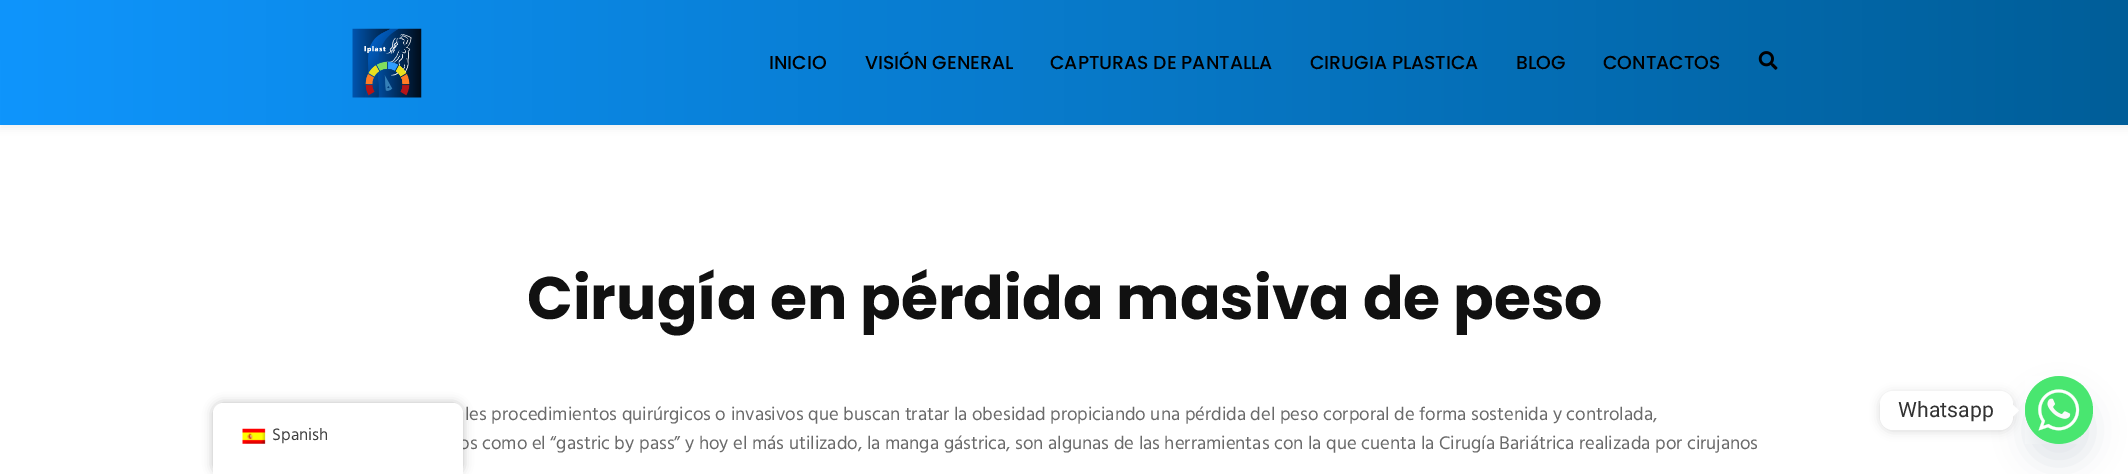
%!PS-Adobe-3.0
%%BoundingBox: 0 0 2128 474
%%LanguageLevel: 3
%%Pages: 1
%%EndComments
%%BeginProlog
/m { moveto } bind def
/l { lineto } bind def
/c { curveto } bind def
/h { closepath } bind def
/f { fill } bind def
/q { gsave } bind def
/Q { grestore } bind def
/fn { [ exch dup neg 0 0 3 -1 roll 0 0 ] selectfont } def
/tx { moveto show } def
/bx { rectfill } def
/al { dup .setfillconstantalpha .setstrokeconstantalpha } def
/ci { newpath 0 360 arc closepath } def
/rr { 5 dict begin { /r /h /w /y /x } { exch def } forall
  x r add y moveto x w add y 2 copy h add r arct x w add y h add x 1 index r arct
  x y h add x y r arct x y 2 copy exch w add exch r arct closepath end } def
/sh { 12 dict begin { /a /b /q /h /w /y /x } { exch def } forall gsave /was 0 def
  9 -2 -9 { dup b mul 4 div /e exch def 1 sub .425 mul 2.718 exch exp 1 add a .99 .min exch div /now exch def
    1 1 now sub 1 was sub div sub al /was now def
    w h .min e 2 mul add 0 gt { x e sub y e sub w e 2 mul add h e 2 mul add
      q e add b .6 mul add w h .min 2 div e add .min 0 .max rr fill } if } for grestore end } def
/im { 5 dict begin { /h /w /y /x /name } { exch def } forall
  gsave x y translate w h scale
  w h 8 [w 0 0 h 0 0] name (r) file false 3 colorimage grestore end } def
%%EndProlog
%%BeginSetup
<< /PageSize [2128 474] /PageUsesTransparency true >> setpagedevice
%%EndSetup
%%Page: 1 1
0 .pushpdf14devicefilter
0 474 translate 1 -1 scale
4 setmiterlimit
1 setgray
0 0 2128 474 bx
0 setgray
0 4 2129 125 0 4 0.05 sh
q 0 0 m 2128 0 l 2128 125 l 0 125 l h clip newpath
<< /ShadingType 2 /ColorSpace /DeviceRGB /Coords [0 63 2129 62] /Extend [true true] /Function << /FunctionType 2 /Domain [0 1] /C0 [0.059 0.584 0.988] /C1 [0 0.369 0.6] /N 1 >> >> shfill Q
(image0.raw) 352 28 70 70 im
/Poppins-Medium 18.75 fn
0 0 0.004 setrgbcolor
(INICIO) 769 69 tx
(VISIÓN GENERAL) 865 69 tx
(CAPTURAS DE PANTALLA) 1050 69 tx
(CIRUGIA PLASTICA) 1310 69 tx
(BLOG) 1516 69 tx
(CONTACTOS) 1603 69 tx
(image1.raw) 1758 51 20 19 im
/Poppins-Bold 60 fn
0.067 setgray
(Cirugía en pérdida masiva de peso) 527 319 tx
/Hind-Regular 18.75 fn
0.416 setgray
(les procedimientos quirúrgicos o invasivos que buscan tratar la obesidad propiciando una pérdida del peso corporal de forma sostenida y controlada,) 465 420 tx
(os como el “gastric by pass” y hoy el más utilizado, la manga gástrica, son algunas de las herramientas con la que cuenta la Cirugía Bariátrica realizada por cirujanos) 459 449 tx
0.286 0.408 0.494 setrgbcolor
2025 396 68 68 34 15 0.16 sh
0.286 0.902 0.439 setrgbcolor
2059 410 34 ci f
(image2.raw) 2025 376 55 68 im
0 setgray
1880 393 133 38 13 5 0.15 sh
1 setgray
1880 391 133 39 13 rr f
/Roboto-Regular 21.25 fn
0.2 setgray
(Whatsapp) 1898 417 tx
1 setgray
2012.5 417 m 2012.5 404.5 l 2019 410.5 l h f
0 setgray
213 403 250 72 10 5 0.25 sh
1 setgray
223 403 m 453 403 l 458.5 403 463 407.5 463 413 c 463 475 l 213 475 l 213 413 l 213 407.5 217.5 403 223 403 c h f
(image3.raw) 242 428 24 16 im
/Hind-Regular 17 fn
0.251 setgray
(Spanish) 272 440 tx
.poppdf14devicefilter showpage
%%EOF
